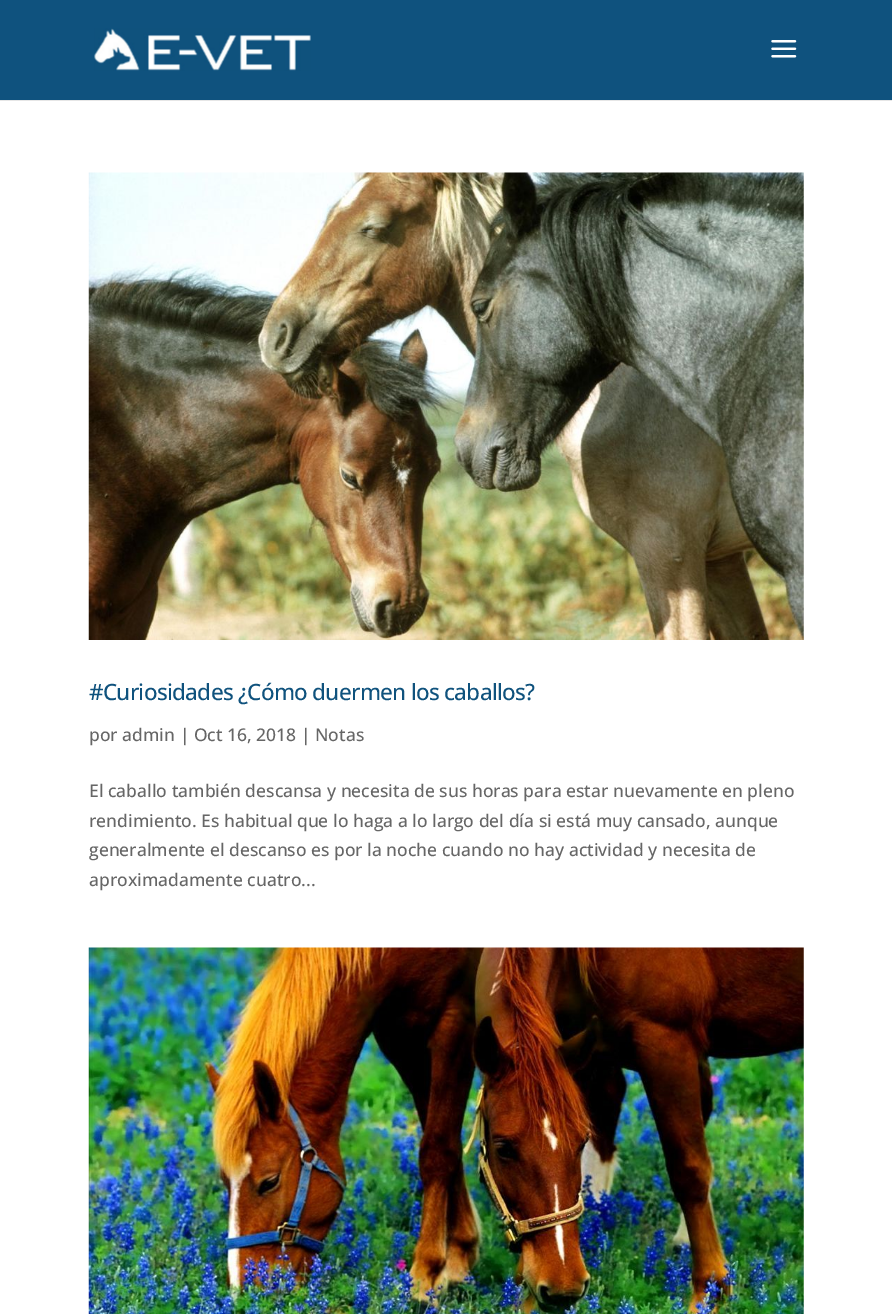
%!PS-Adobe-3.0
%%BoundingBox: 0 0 892 1314
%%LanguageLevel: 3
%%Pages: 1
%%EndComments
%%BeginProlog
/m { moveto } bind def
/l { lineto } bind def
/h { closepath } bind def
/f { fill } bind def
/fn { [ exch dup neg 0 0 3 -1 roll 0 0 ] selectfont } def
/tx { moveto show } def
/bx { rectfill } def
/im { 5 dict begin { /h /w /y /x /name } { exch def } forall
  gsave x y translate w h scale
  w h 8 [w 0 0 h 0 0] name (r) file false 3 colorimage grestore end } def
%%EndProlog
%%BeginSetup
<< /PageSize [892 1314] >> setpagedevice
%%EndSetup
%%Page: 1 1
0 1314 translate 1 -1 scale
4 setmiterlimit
1 setgray
0 0 892 1314 bx
0.902 setgray
0 100 m 0 101 l 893 101 l 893 1 l 892 1 l 892 100 l h f
0.059 0.322 0.494 setrgbcolor
0 0 892 100 bx
(image0.raw) 94 28 217 43 im
(image1.raw) 771 40 26 18 im
(image2.raw) 88 172 716 468 im
/OpenSans-Medium 22.5 fn
0.059 0.322 0.49 setrgbcolor
89 700 m -0.7 0 (#Curiosidades ¿Cómo duermen los caballos?) ashow
/OpenSans-Medium 17.5 fn
0.4 setgray
(por admin | Oct 16, 2018 | Notas) 89 741 tx
(El caballo también descansa y necesita de sus horas para estar nuevamente en pleno) 89 797 tx
(rendimiento. Es habitual que lo haga a lo largo del día si está muy cansado, aunque) 89 827 tx
(generalmente el descanso es por la noche cuando no hay actividad y necesita de) 89 856 tx
(aproximadamente cuatro...) 89 886 tx
(image3.raw) 88 947 716 367 im
showpage
%%EOF
